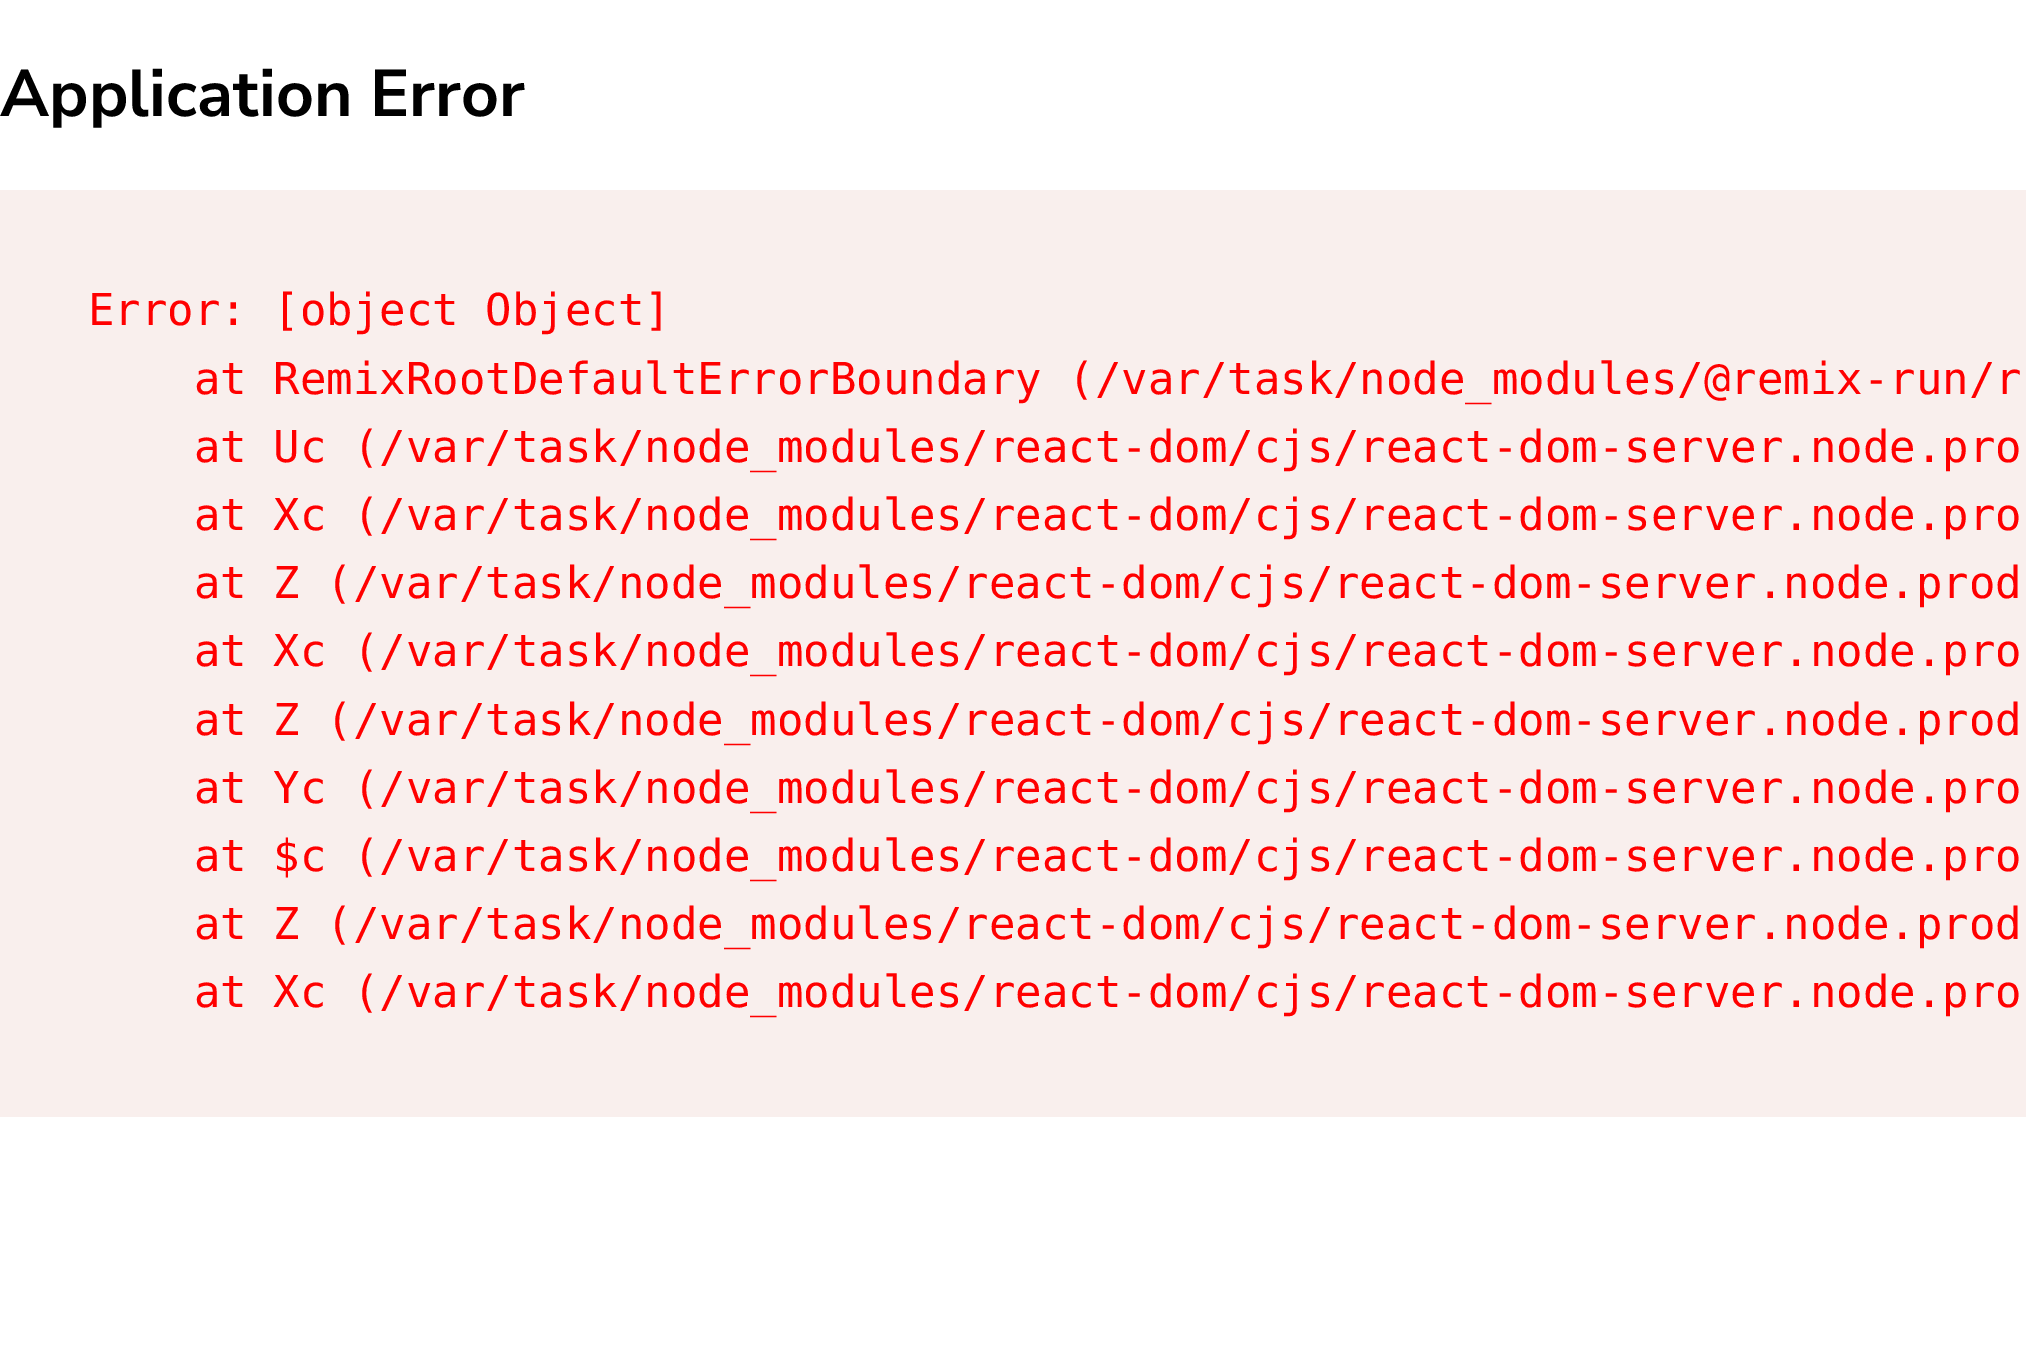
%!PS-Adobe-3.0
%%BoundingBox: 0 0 2026 1367
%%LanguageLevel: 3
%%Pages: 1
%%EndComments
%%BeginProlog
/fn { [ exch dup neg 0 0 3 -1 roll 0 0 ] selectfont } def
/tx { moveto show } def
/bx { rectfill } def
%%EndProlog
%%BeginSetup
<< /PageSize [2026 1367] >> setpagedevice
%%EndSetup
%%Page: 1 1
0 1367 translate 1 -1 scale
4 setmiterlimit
1 setgray
0 0 2026 1367 bx
/NunitoSans-Bold 66 fn
0 setgray
(Application Error) 0 116 tx
0.976 0.937 0.929 setrgbcolor
0 190 2026 927 bx
/DejaVuSansMono-Regular 44 fn
1 0 0 setrgbcolor
(Error: [object Object]) 88 325 tx
(at RemixRootDefaultErrorBoundary \(/var/task/node_modules/@remix-run/r) 194 394 tx
(at Uc \(/var/task/node_modules/react-dom/cjs/react-dom-server.node.pro) 194 462 tx
(at Xc \(/var/task/node_modules/react-dom/cjs/react-dom-server.node.pro) 194 530 tx
(at Z \(/var/task/node_modules/react-dom/cjs/react-dom-server.node.prod) 194 598 tx
(at Xc \(/var/task/node_modules/react-dom/cjs/react-dom-server.node.pro) 194 666 tx
(at Z \(/var/task/node_modules/react-dom/cjs/react-dom-server.node.prod) 194 735 tx
(at Yc \(/var/task/node_modules/react-dom/cjs/react-dom-server.node.pro) 194 803 tx
(at $c \(/var/task/node_modules/react-dom/cjs/react-dom-server.node.pro) 194 871 tx
(at Z \(/var/task/node_modules/react-dom/cjs/react-dom-server.node.prod) 194 939 tx
(at Xc \(/var/task/node_modules/react-dom/cjs/react-dom-server.node.pro) 194 1007 tx
showpage
%%EOF
